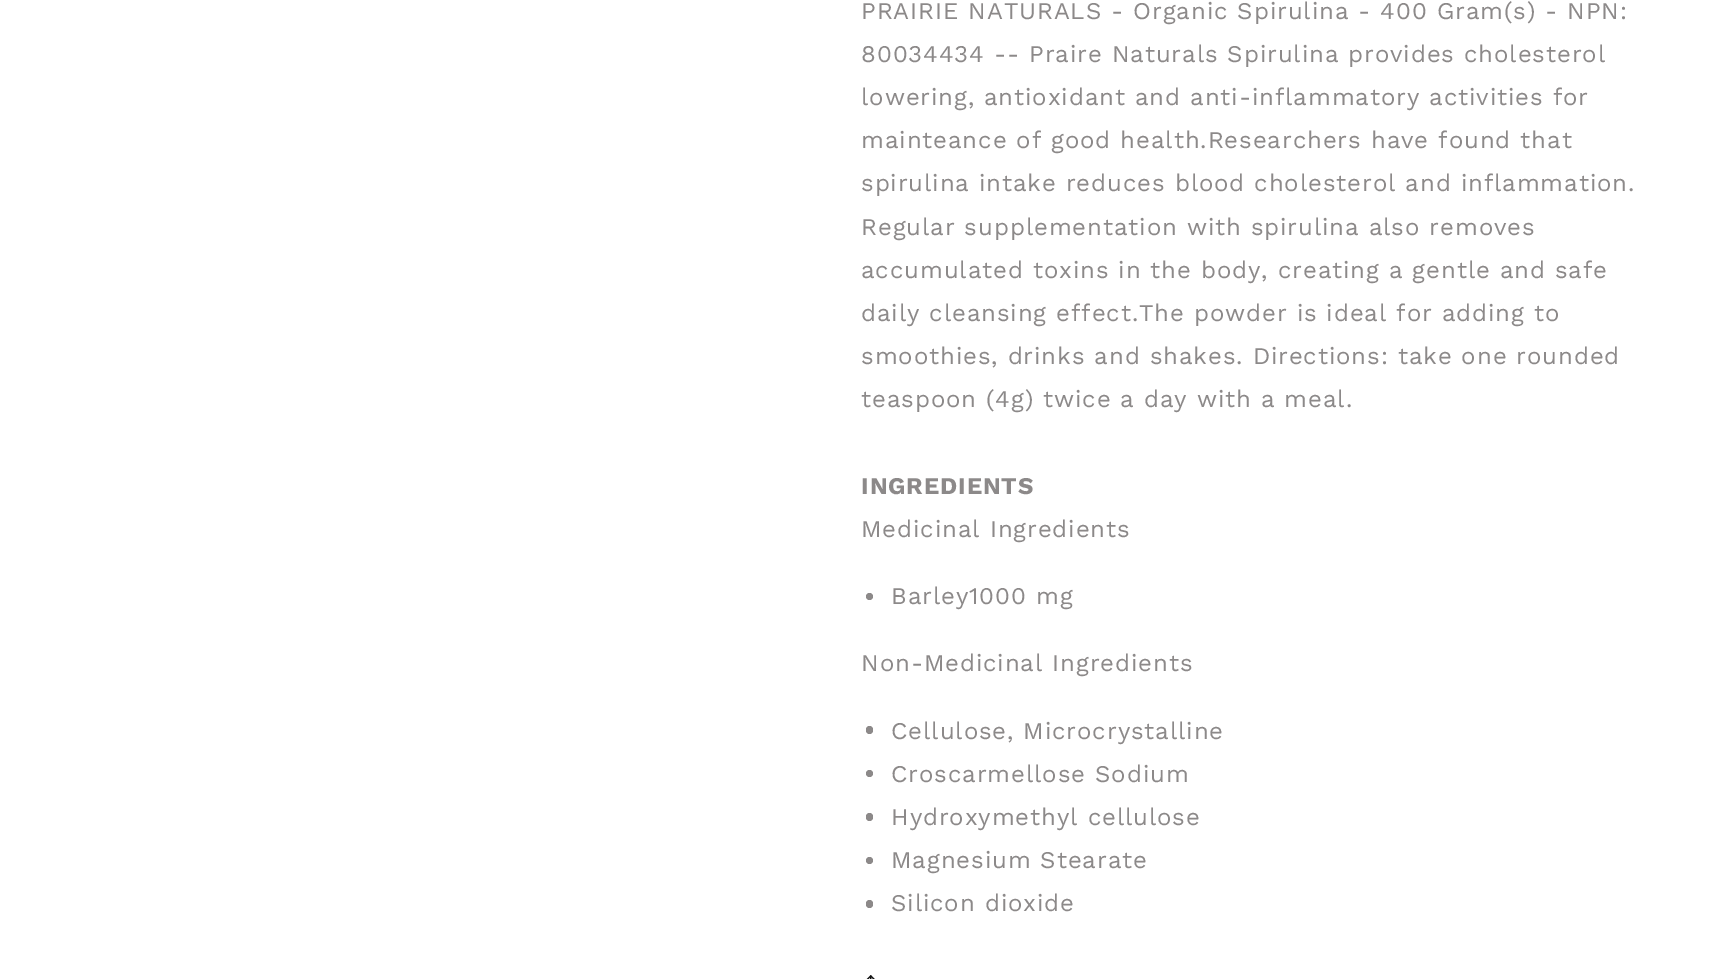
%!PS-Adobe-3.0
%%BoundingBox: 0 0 1730 979
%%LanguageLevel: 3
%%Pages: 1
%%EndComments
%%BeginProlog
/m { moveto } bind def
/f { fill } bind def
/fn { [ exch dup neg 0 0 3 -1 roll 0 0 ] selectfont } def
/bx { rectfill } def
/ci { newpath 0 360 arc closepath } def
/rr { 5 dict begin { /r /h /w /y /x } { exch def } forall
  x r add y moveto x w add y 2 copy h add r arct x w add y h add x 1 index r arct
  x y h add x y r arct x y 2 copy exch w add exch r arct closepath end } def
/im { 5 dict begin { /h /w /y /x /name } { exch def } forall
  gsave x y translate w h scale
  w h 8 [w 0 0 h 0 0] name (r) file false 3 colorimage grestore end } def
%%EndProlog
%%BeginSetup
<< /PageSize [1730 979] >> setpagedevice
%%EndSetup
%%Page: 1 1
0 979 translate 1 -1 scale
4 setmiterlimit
1 setgray
0 0 1730 979 bx
/WorkSans-Regular 24 fn
0.549 0.537 0.537 setrgbcolor
861 19 m 0.9 0 (PRAIRIE NATURALS - Organic Spirulina - 400 Gram\(s\) - NPN:) ashow
861 62 m 0.9 0 (80034434 -- Praire Naturals Spirulina provides cholesterol) ashow
861 105 m 0.9 0 (lowering, antioxidant and anti-inflammatory activities for) ashow
861 148 m 0.9 0 (mainteance of good health.Researchers have found that) ashow
861 191 m 0.9 0 (spirulina intake reduces blood cholesterol and inflammation.) ashow
861 235 m 0.9 0 (Regular supplementation with spirulina also removes) ashow
861 278 m 0.9 0 (accumulated toxins in the body, creating a gentle and safe) ashow
861 321 m 0.9 0 (daily cleansing effect.The powder is ideal for adding to) ashow
861 364 m 0.9 0 (smoothies, drinks and shakes. Directions: take one rounded) ashow
861 407 m 0.9 0 (teaspoon \(4g\) twice a day with a meal.) ashow
/WorkSans-Bold 24 fn
861 494 m 0.9 0 (INGREDIENTS) ashow
/WorkSans-Regular 24 fn
861 537 m 0.9 0 (Medicinal Ingredients) ashow
869.5 596.5 3.5 ci f
891 604 m 0.9 0 (Barley1000 mg) ashow
861 671 m 0.9 0 (Non-Medicinal Ingredients) ashow
866 726 7 8 3.5 rr f
891 739 m 0.9 0 (Cellulose, Microcrystalline) ashow
869.5 773.5 3.5 ci f
891 782 m 0.9 0 (Croscarmellose Sodium) ashow
866 813 7 8 3.5 rr f
891 825 m 0.9 0 (Hydroxymethyl cellulose) ashow
869.5 860.5 3.5 ci f
891 868 m 0.9 0 (Magnesium Stearate) ashow
866 900 7 8 3.5 rr f
891 911 m 0.9 0 (Silicon dioxide) ashow
(image0.raw) 866 975 9 4 im
showpage
%%EOF
